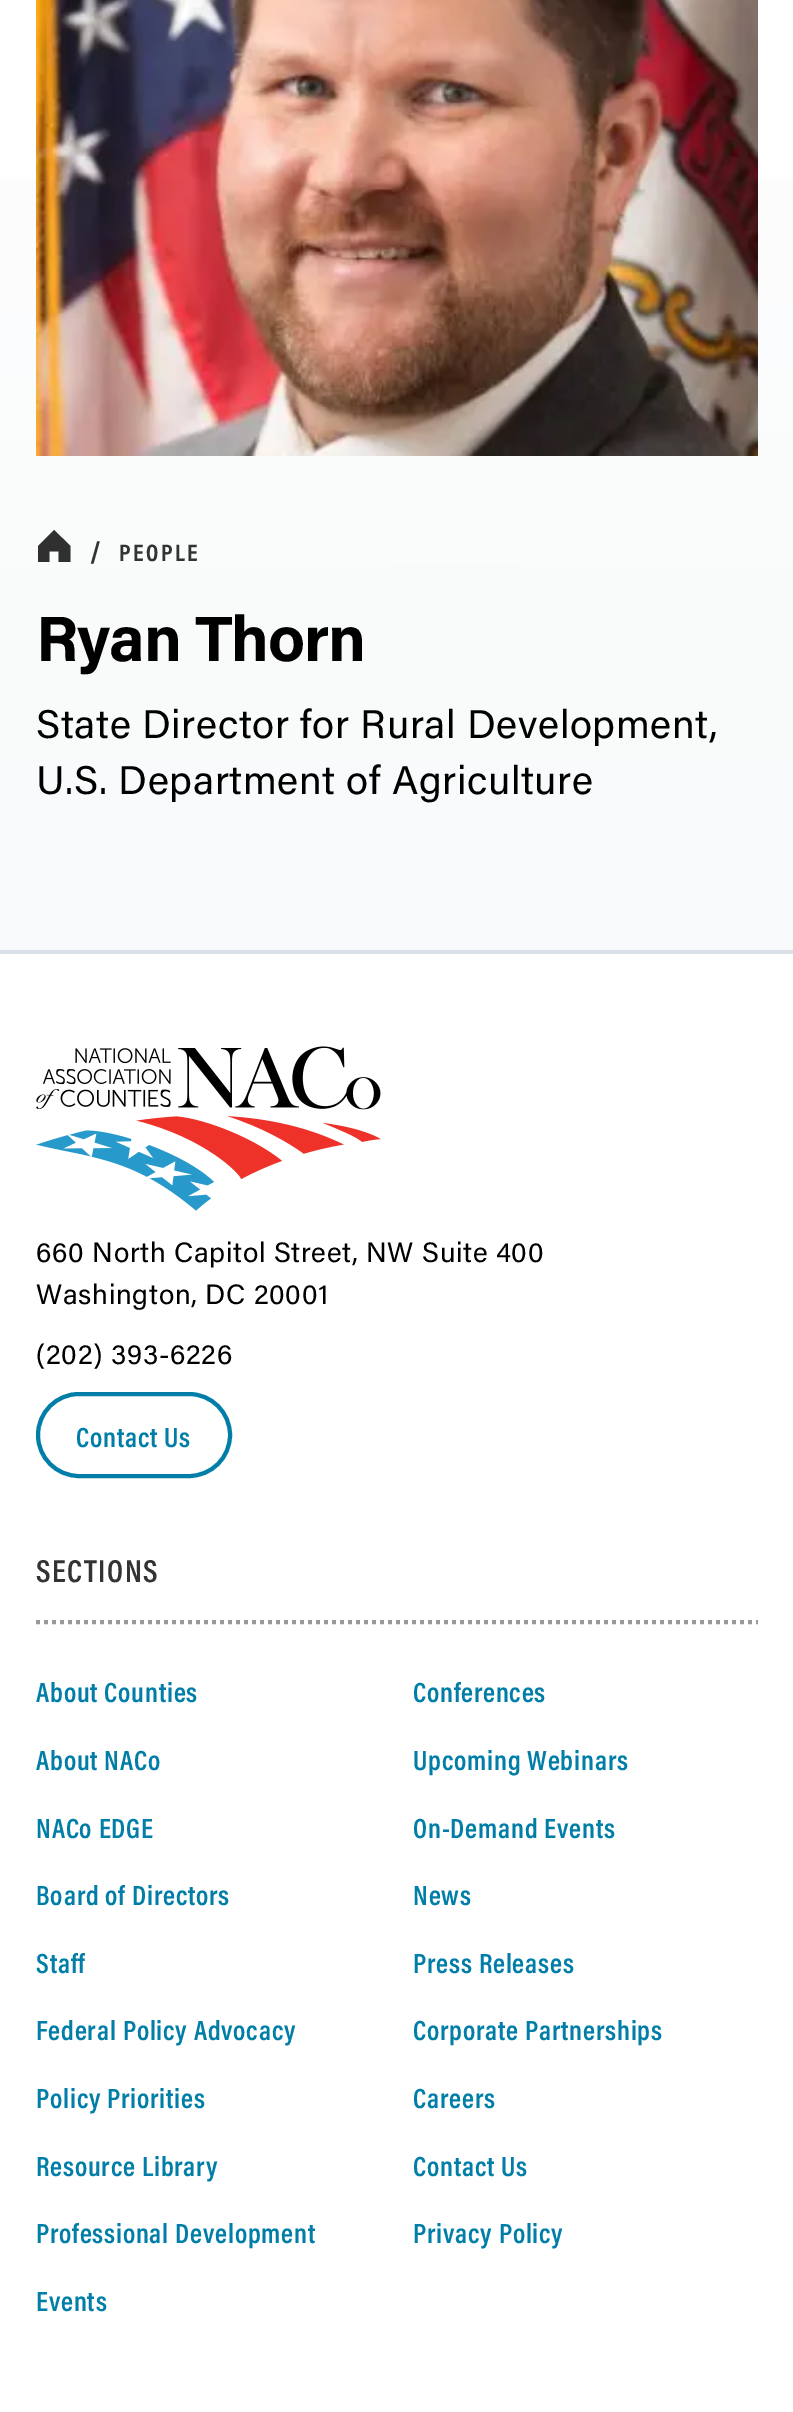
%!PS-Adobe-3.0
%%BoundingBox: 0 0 793 2412
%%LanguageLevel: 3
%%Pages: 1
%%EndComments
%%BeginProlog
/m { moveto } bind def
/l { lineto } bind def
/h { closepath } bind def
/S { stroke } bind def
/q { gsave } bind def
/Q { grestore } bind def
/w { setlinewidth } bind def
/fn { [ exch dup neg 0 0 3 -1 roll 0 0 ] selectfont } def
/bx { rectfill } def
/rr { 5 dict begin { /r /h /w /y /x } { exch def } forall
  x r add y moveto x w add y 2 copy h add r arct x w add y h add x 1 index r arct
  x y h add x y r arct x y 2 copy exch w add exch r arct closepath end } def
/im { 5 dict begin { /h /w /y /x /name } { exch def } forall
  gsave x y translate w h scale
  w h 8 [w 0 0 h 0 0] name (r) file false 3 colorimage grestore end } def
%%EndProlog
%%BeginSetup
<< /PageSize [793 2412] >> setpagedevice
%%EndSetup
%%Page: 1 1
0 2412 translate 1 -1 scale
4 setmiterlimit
1 setgray
0 0 793 2412 bx
q 0 179 m 793 179 l 793 950 l 0 950 l h clip newpath
<< /ShadingType 2 /ColorSpace /DeviceRGB /Coords [402 953 392 -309] /Extend [true true] /Function << /FunctionType 3 /Domain [0 1] /Functions [<< /FunctionType 2 /Domain [0 1] /C0 [0.973 0.98 0.984] /C1 [1 1 1] /N 1 >> << /FunctionType 2 /Domain [0 1] /C0 [1 1 1] /C1 [1 1 1] /N 1 >>] /Bounds [0.95] /Encode [0 1 0 1] >> >> shfill Q
0.851 0.878 0.91 setrgbcolor
0 950 793 4 bx
(image0.raw) 36 0 722 456 im
0.188 setgray
54 530 m 38 546 l 38 562 l 49.5 562 l 49.5 551.5 l 58.5 551.5 l 58.5 562 l 70.5 562 l 70.5 546 l h eofill
/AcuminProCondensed-Bold 32 fn
0.2 setgray
90 563 m 0.65 0 (/) ashow
/AcuminProCondensed-Bold 24 fn
119 561 m 2.5 0 (PEOPLE) ashow
/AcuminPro-Bold 64 fn
0 setgray
36 661 m -1.25 0 (Ryan Thorn) ashow
/AcuminPro-Regular 40 fn
36 738 m 0.65 0 (State Director for Rural Development,) ashow
36 794 m 0.65 0 (U.S. Department of Agriculture) ashow
(image1.raw) 36 1046 345 165 im
/AcuminPro-Regular 28 fn
36 1262 m 0.65 0 (660 North Capitol Street, NW Suite 400) ashow
36 1304 m 0.65 0 (Washington, DC 20001) ashow
36 1364 m 0.65 0 (\(202\) 393-6226) ashow
0 0.494 0.659 setrgbcolor
4 w
38 1394 192 82 41 rr S
/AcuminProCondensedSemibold-SemiBold 28 fn
76 1447 m 0.8 0 (Contact Us) ashow
/AcuminProCondensedSemibold-SemiBold 32 fn
0.2 setgray
36 1582 m 1.5 0 (SECTIONS) ashow
0.6 setgray
[4 4] 0 setdash
36 1622 m 758 1622 l S
/AcuminProCondensedSemibold-SemiBold 28 fn
0 0.494 0.659 setrgbcolor
413 1702 m 0.8 0 (Conferences) ashow
413 1770 m 0.8 0 (Upcoming Webinars) ashow
413 1838 m 0.8 0 (On-Demand Events) ashow
413 1905 m 0.8 0 (News) ashow
36 2176 m 0.8 0 (Resource Library) ashow
36 2243 m 0.8 0 (Professional Development) ashow
36 2311 m 0.8 0 (Events) ashow
36 1702 m 0.8 0 (About Counties) ashow
36 1770 m 0.8 0 (About NACo) ashow
36 1838 m 0.8 0 (NACo EDGE) ashow
36 1905 m 0.8 0 (Board of Directors) ashow
36 1973 m 0.8 0 (Staff) ashow
36 2040 m 0.8 0 (Federal Policy Advocacy) ashow
36 2108 m 0.8 0 (Policy Priorities) ashow
413 1973 m 0.8 0 (Press Releases) ashow
413 2040 m 0.8 0 (Corporate Partnerships) ashow
413 2108 m 0.8 0 (Careers) ashow
413 2176 m 0.8 0 (Contact Us) ashow
413 2243 m 0.8 0 (Privacy Policy) ashow
showpage
%%EOF
